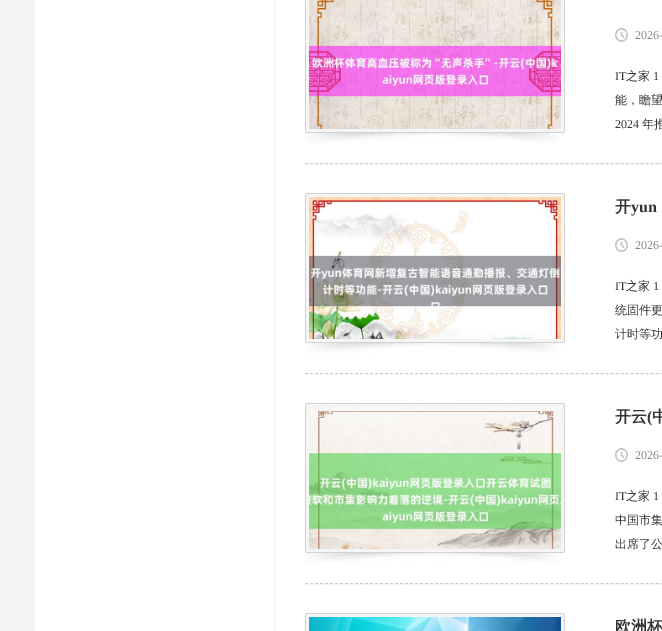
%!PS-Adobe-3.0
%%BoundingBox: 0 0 662 631
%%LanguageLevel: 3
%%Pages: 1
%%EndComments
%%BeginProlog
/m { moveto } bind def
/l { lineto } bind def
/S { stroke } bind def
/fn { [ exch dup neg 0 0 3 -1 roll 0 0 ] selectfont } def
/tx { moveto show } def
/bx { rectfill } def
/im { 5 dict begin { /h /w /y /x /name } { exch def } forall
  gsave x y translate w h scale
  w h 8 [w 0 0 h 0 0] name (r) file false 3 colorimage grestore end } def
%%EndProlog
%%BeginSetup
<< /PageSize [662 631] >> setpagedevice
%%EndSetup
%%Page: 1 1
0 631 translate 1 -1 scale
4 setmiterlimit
0.961 setgray
0 0 662 631 bx
(image0.raw) 35 0 627 631 im
0.8 setgray
[3 2.01] 0 setdash
305 163.5 m 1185 163.5 l S
(image1.raw) 305 0 260 143 im
(image2.raw) 309 0 252 129 im
(image3.raw) 615 28 13 14 im
/LiberationSerif-Regular 12 fn
0.533 setgray
(2026-) 635 39 tx
0.2 setgray
(IT) 615 80 tx
/WenQuanYiZenHei-Medium 12 fn
(之家) 626 80 tx
/LiberationSerif-Regular 12 fn
(1) 653 80 tx
/WenQuanYiZenHei-Medium 12 fn
(能，瞻望) 615 104 tx
/LiberationSerif-Regular 12 fn
(2024) 615 128 tx
/WenQuanYiZenHei-Medium 12 fn
(年推) 642 128 tx
0.8 setgray
305 373.5 m 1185 373.5 l S
(image4.raw) 305 193 260 160 im
(image5.raw) 309 197 252 142 im
/WenQuanYiZenHei-Bold 16 fn
0.2 setgray
(开) 615 212 tx
/LiberationSerif-Bold 16 fn
(yun) 631 212 tx
(image3.raw) 615 238 13 14 im
/LiberationSerif-Regular 12 fn
0.533 setgray
(2026-) 635 249 tx
0.2 setgray
(IT) 615 290 tx
/WenQuanYiZenHei-Medium 12 fn
(之家) 626 290 tx
/LiberationSerif-Regular 12 fn
(1) 653 290 tx
/WenQuanYiZenHei-Medium 12 fn
(统固件更) 615 314 tx
(计时等功) 615 338 tx
0.8 setgray
305 583.5 m 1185 583.5 l S
(image4.raw) 305 403 260 160 im
(image6.raw) 309 407 252 142 im
/WenQuanYiZenHei-Bold 16 fn
0.2 setgray
(开云) 615 422 tx
/LiberationSerif-Bold 16 fn
(\() 647 422 tx
/WenQuanYiZenHei-Bold 16 fn
(中) 652 422 tx
(image3.raw) 615 448 13 14 im
/LiberationSerif-Regular 12 fn
0.533 setgray
(2026-) 635 459 tx
0.2 setgray
(IT) 615 500 tx
/WenQuanYiZenHei-Medium 12 fn
(之家) 626 500 tx
/LiberationSerif-Regular 12 fn
(1) 653 500 tx
/WenQuanYiZenHei-Medium 12 fn
615 524 m -1 0 32 (中国市集) widthshow
(出席了公) 615 548 tx
(image7.raw) 305 613 260 18 im
(image8.raw) 309 617 252 14 im
/WenQuanYiZenHei-Bold 16 fn
(欧洲杯) 615 632 tx
showpage
%%EOF
